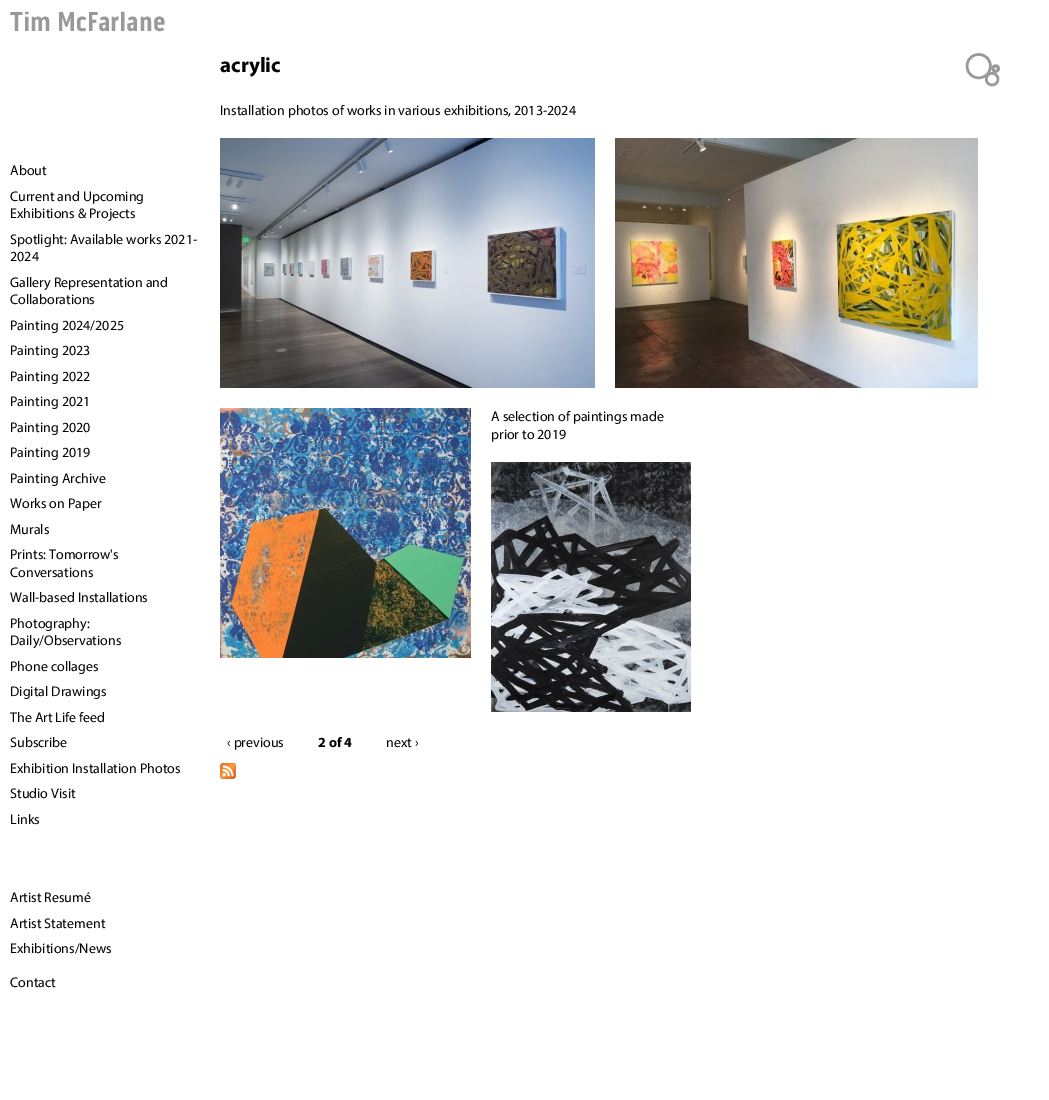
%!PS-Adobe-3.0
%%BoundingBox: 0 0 1049 1100
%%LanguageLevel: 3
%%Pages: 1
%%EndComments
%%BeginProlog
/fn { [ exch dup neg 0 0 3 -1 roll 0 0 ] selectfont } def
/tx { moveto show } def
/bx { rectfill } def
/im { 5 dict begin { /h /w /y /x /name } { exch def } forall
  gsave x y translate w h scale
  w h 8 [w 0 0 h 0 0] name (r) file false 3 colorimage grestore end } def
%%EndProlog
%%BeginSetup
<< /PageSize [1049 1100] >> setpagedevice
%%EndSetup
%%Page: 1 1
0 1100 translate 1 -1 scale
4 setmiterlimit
1 setgray
0 0 1049 1100 bx
/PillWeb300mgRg-Bold 28 fn
0.6 setgray
(Tim McFarlane) 10 31 tx
/Myriad-Regular 14 fn
0 setgray
(About) 10 175 tx
(Current and Upcoming) 10 201 tx
(Exhibitions & Projects) 10 218 tx
(Spotlight: Available works 2021-) 10 244 tx
(2024) 10 261 tx
(Gallery Representation and) 10 287 tx
(Collaborations) 10 304 tx
(Painting 2024/2025) 10 330 tx
(Painting 2023) 10 355 tx
(Painting 2022) 10 381 tx
(Painting 2021) 10 406 tx
(Painting 2020) 10 432 tx
(Painting 2019) 10 457 tx
(Painting Archive) 10 483 tx
(Works on Paper) 10 508 tx
(Murals) 10 534 tx
(Prints: Tomorrow's) 10 559 tx
(Conversations) 10 577 tx
(Wall-based Installations) 10 602 tx
(Photography:) 10 628 tx
(Daily/Observations) 10 645 tx
(Phone collages) 10 671 tx
(Digital Drawings) 10 696 tx
(The Art Life feed) 10 722 tx
(Subscribe) 10 747 tx
(Exhibition Installation Photos) 10 773 tx
(Studio Visit) 10 798 tx
(Links) 10 824 tx
(Artist Resumé) 10 902 tx
(Artist Statement) 10 928 tx
(Exhibitions/News) 10 953 tx
(Contact) 10 987 tx
/Myriad-Bold 21 fn
(acrylic) 220 72 tx
/Myriad-Regular 14 fn
(Installation photos of works in various exhibitions, 2013-2024) 220 115 tx
(image0.raw) 220 138 375 250 im
(image1.raw) 615 138 363 250 im
(image2.raw) 220 408 251 250 im
(A selection of paintings made) 491 421 tx
(prior to 2019) 491 439 tx
(image3.raw) 491 462 200 250 im
(‹ previous) 227 747 tx
/Myriad-Bold 14 fn
(2 of 4) 318 747 tx
/Myriad-Regular 14 fn
(next ›) 386 747 tx
(image4.raw) 220 763 16 16 im
(image5.raw) 965 53 35 34 im
showpage
%%EOF
